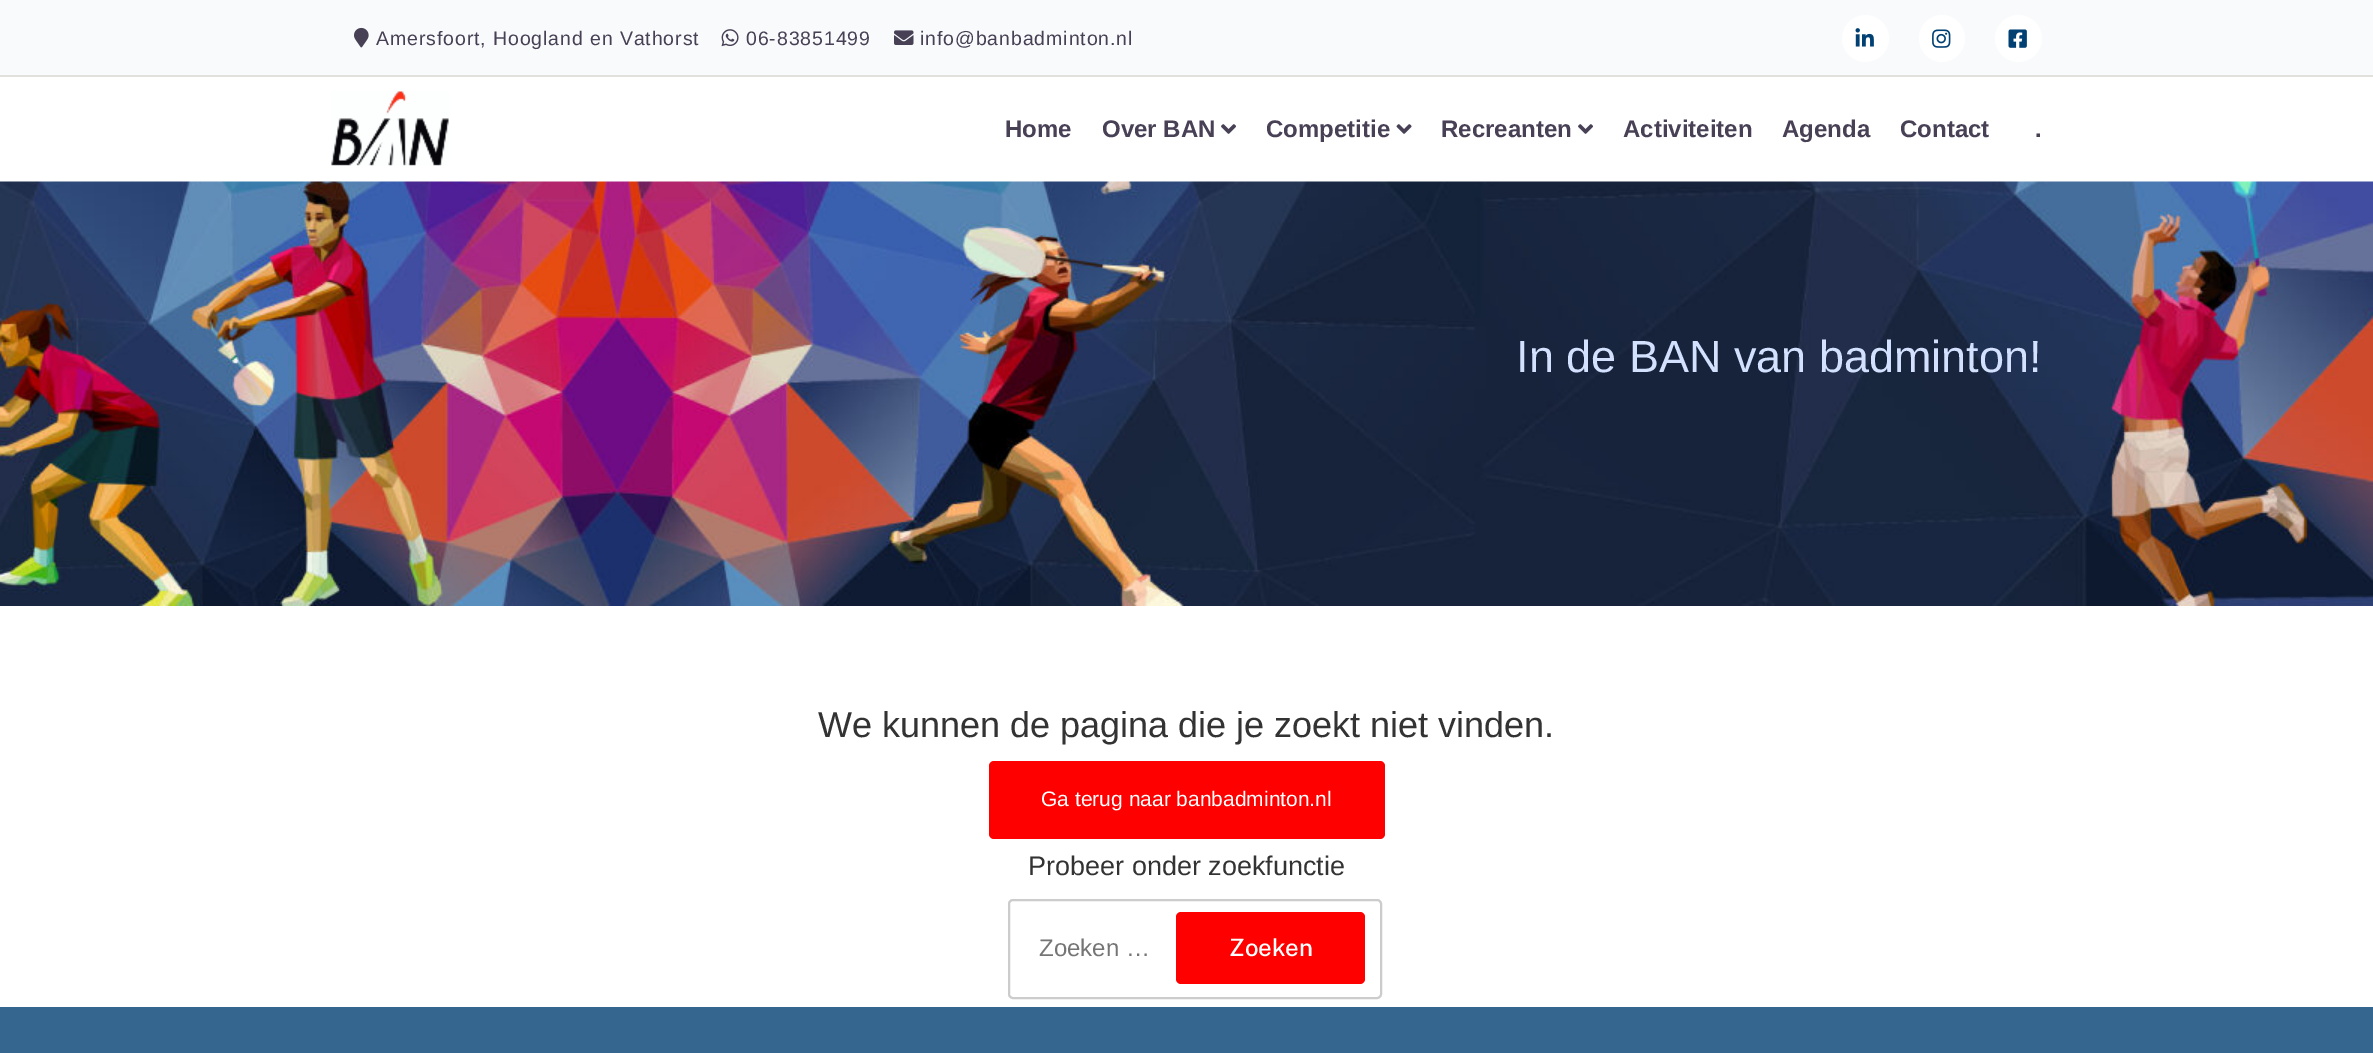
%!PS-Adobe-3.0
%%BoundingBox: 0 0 2373 1053
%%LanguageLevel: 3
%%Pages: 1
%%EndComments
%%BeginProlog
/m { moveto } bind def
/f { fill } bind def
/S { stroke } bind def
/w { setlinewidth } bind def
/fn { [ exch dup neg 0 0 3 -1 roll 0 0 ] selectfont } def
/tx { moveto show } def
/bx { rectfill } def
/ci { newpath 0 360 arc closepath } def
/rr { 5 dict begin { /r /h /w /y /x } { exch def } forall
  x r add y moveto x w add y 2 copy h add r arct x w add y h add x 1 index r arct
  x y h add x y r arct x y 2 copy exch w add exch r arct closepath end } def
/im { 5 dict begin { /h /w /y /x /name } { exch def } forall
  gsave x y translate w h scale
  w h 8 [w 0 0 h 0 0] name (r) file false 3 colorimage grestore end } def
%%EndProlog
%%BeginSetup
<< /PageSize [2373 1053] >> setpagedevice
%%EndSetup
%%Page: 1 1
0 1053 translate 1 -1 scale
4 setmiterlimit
1 setgray
0 0 2373 1053 bx
0.973 0.98 0.984 setrgbcolor
0 0 2373 75 bx
0.886 0.882 0.867 setrgbcolor
0 75 2373 2 bx
(image0.raw) 354 27 15 21 im
/LiberationSans-Regular 19.5 fn
0.282 0.251 0.333 setrgbcolor
376 45 m 0.9 0 (Amersfoort, Hoogland en Vathorst) ashow
(image1.raw) 721 29 18 18 im
746 45 m 0.9 0 (06-83851499) ashow
(image2.raw) 894 30 20 15 im
920 45 m 0.9 0 (info@banbadminton.nl) ashow
1 setgray
1865.5 38.5 23.5 ci f
(image3.raw) 1855 28 19 19 im
1919 15 46 47 23 rr f
(image4.raw) 1932 29 19 19 im
2018.5 38.5 23.5 ci f
(image5.raw) 2008 29 19 19 im
(image6.raw) 331 91 118 75 im
/LiberationSans-Bold 24 fn
0.282 0.251 0.333 setrgbcolor
(Home) 1005 137 tx
(Over BAN) 1102 137 tx
(image7.raw) 1221 124 15 10 im
(Competitie) 1266 137 tx
(image8.raw) 1396 124 16 10 im
(Recreanten) 1441 137 tx
(image7.raw) 1578 124 15 10 im
(Activiteiten) 1623 137 tx
(Agenda) 1782 137 tx
(Contact) 1900 137 tx
(.) 2035 137 tx
(image9.raw) 0 181 2373 425 im
/LiberationSans-Regular 45 fn
0.827 0.882 1 setrgbcolor
(In de BAN van badminton!) 1516 372 tx
/LiberationSans-Regular 36 fn
0.2 setgray
(We kunnen de pagina die je zoekt niet vinden.) 818 737 tx
1 0 0 setrgbcolor
989 761 396 78 5 rr f
/LiberationSans-Regular 21 fn
1 setgray
(Ga terug naar banbadminton.nl) 1041 806 tx
/LiberationSans-Regular 27 fn
0.2 setgray
(Probeer onder zoekfunctie) 1028 875 tx
0.8 setgray
2 w
1009 900 372 98 4 rr S
/LiberationSans-Regular 24 fn
0.459 setgray
(Zoeken …) 1039 956 tx
1 0 0 setrgbcolor
1176 912 189 72 5 rr f
/PublicSans-Medium 24 fn
1 setgray
(Zoeken) 1229 956 tx
0.204 0.4 0.561 setrgbcolor
0 1007 2373 46 bx
showpage
%%EOF
